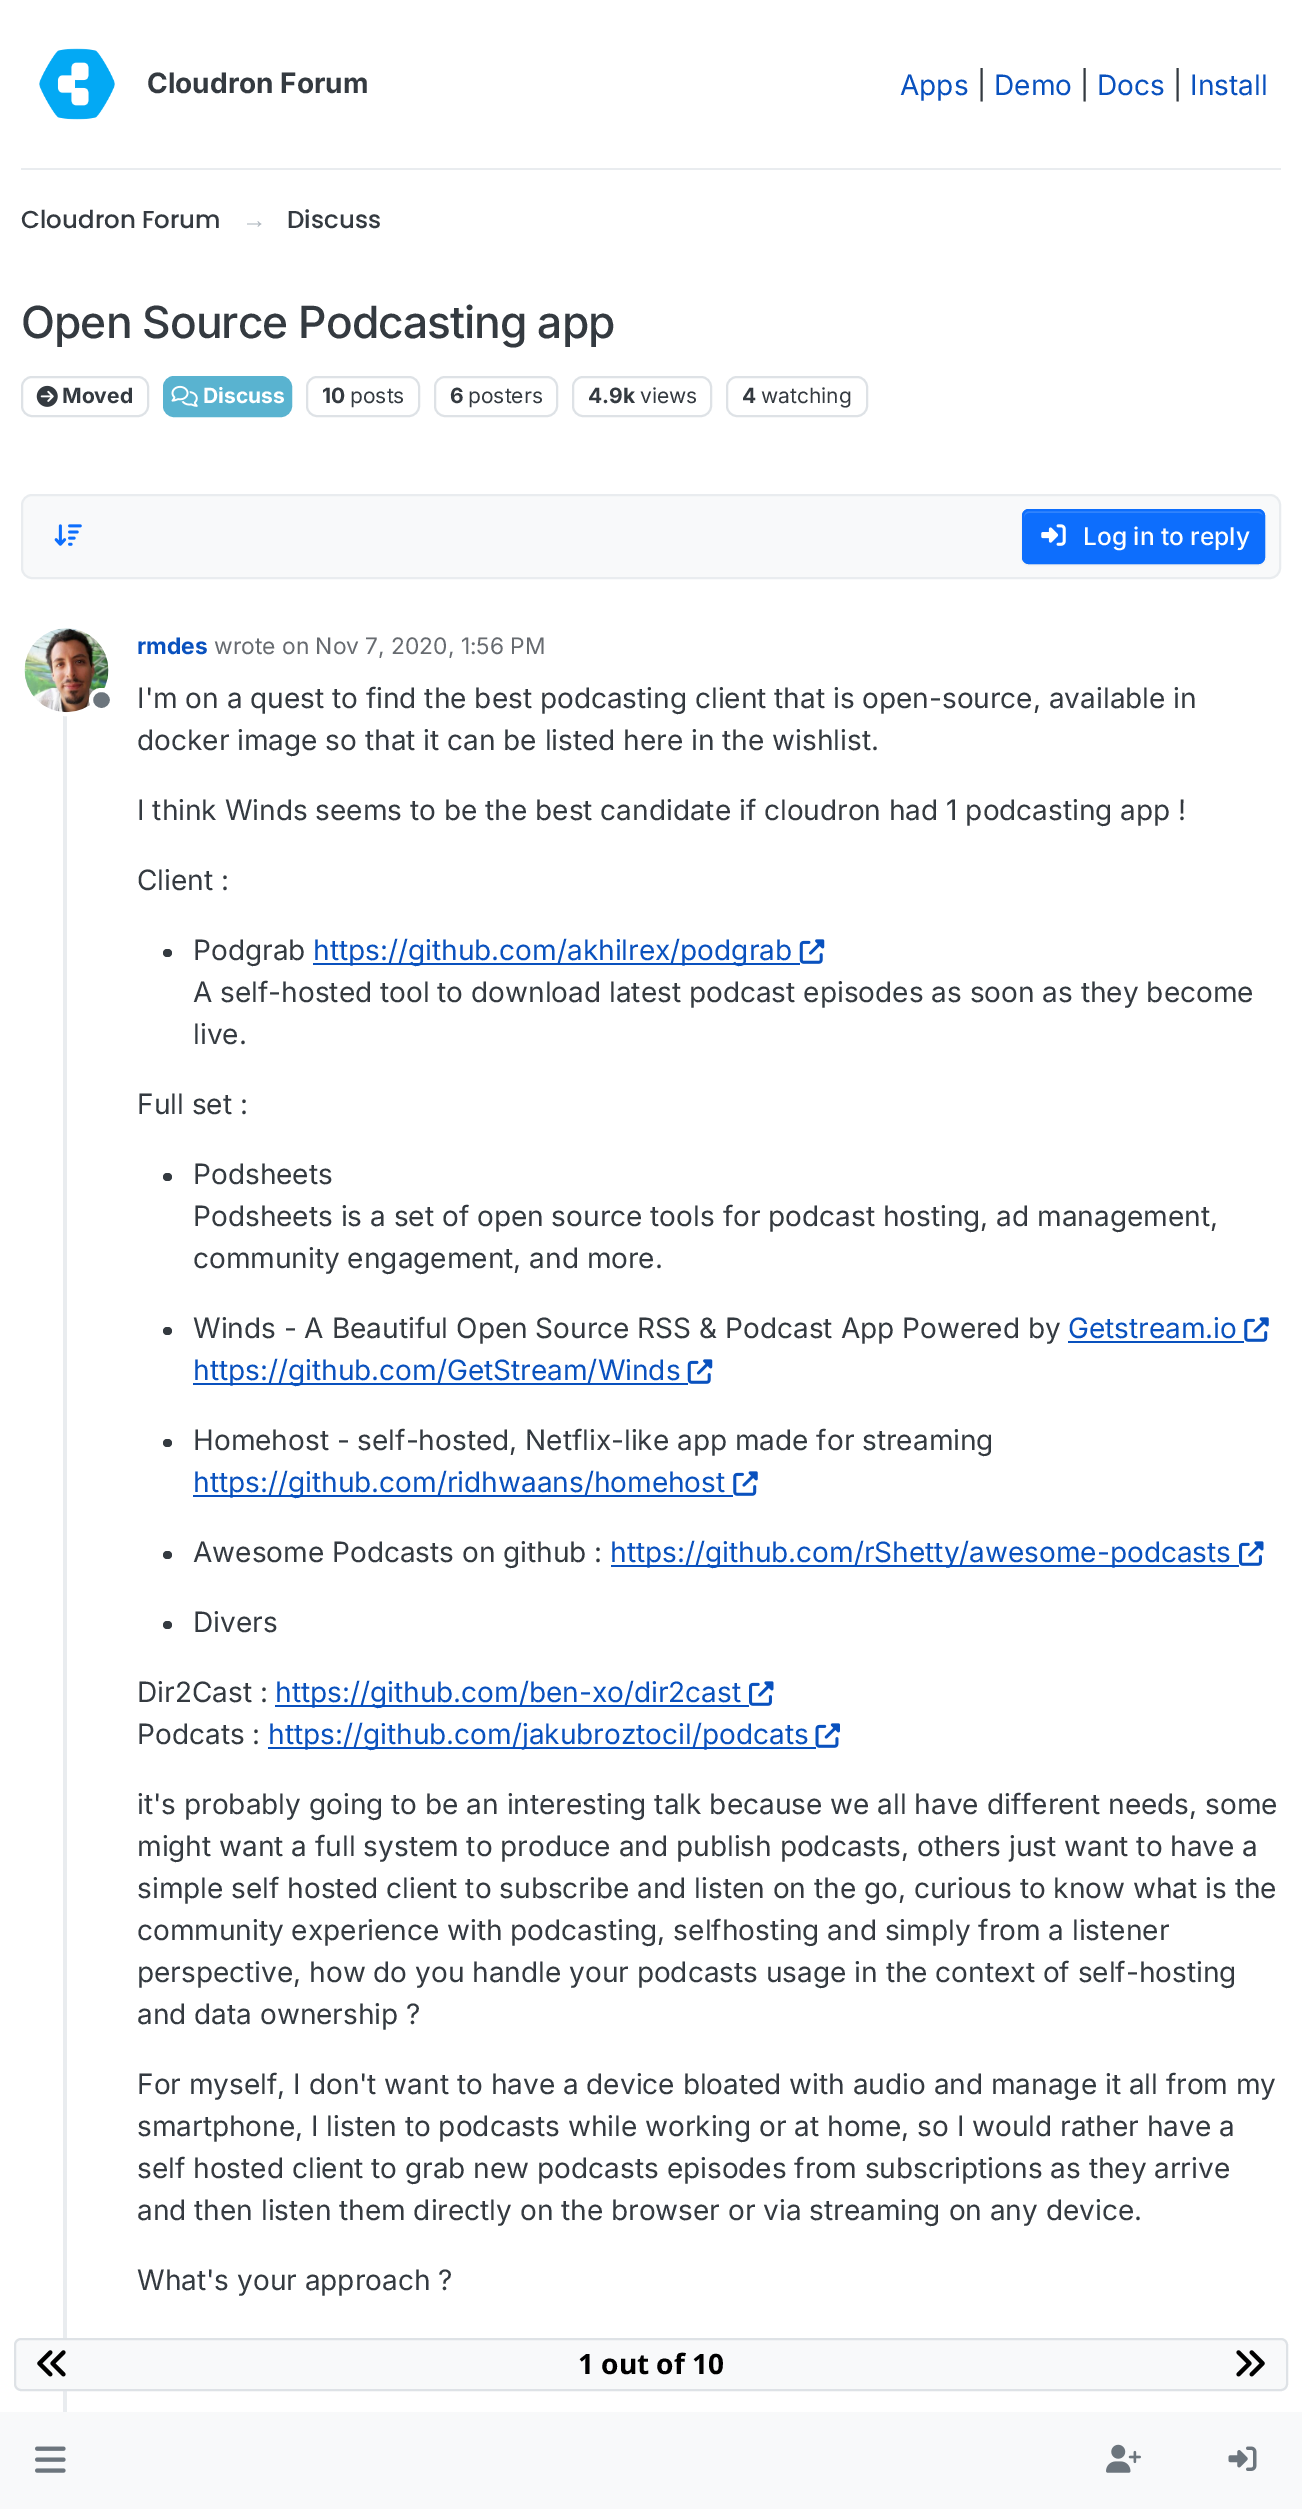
%!PS-Adobe-3.0
%%BoundingBox: 0 0 1302 2509
%%LanguageLevel: 3
%%Pages: 1
%%EndComments
%%BeginProlog
/m { moveto } bind def
/l { lineto } bind def
/c { curveto } bind def
/h { closepath } bind def
/f { fill } bind def
/S { stroke } bind def
/q { gsave } bind def
/Q { grestore } bind def
/w { setlinewidth } bind def
/fn { [ exch dup neg 0 0 3 -1 roll 0 0 ] selectfont } def
/tx { moveto show } def
/bx { rectfill } def
/al { dup .setfillconstantalpha .setstrokeconstantalpha } def
/ci { newpath 0 360 arc closepath } def
/rr { 5 dict begin { /r /h /w /y /x } { exch def } forall
  x r add y moveto x w add y 2 copy h add r arct x w add y h add x 1 index r arct
  x y h add x y r arct x y 2 copy exch w add exch r arct closepath end } def
/sh { 12 dict begin { /a /b /q /h /w /y /x } { exch def } forall gsave /was 0 def
  9 -2 -9 { dup b mul 4 div /e exch def 1 sub .425 mul 2.718 exch exp 1 add a .99 .min exch div /now exch def
    1 1 now sub 1 was sub div sub al /was now def
    w h .min e 2 mul add 0 gt { x e sub y e sub w e 2 mul add h e 2 mul add
      q e add b .6 mul add w h .min 2 div e add .min 0 .max rr fill } if } for grestore end } def
/im { 5 dict begin { /h /w /y /x /name } { exch def } forall
  gsave x y translate w h scale
  w h 8 [w 0 0 h 0 0] name (r) file false 3 colorimage grestore end } def
%%EndProlog
%%BeginSetup
<< /PageSize [1302 2509] /PageUsesTransparency true >> setpagedevice
%%EndSetup
%%Page: 1 1
0 .pushpdf14devicefilter
0 2509 translate 1 -1 scale
4 setmiterlimit
1 setgray
0 0 1302 2509 bx
0.914 0.925 0.937 setrgbcolor
21 168 1260 2 bx
(image0.raw) 39 48 76 72 im
/Inter-Bold 28 fn
0.204 0.227 0.251 setrgbcolor
(Cloudron Forum) 147 93 tx
/Inter-Regular 28 fn
0.035 0.318 0.745 setrgbcolor
(Apps) 900 95 tx
0.204 0.227 0.251 setrgbcolor
(|) 977 95 tx
0.035 0.318 0.745 setrgbcolor
(Demo) 994 95 tx
0.204 0.227 0.251 setrgbcolor
(|) 1080 95 tx
0.035 0.318 0.745 setrgbcolor
(Docs) 1097 95 tx
0.204 0.227 0.251 setrgbcolor
(|) 1173 95 tx
0.035 0.318 0.745 setrgbcolor
(Install) 1190 95 tx
/Poppins-Medium 24.5 fn
0.204 0.227 0.251 setrgbcolor
(Cloudron Forum) 21 228 tx
/LiberationSans-Regular 24.5 fn
0.678 0.71 0.741 setrgbcolor
(→) 242 228 tx
/Poppins-Medium 24.5 fn
0.204 0.227 0.251 setrgbcolor
(Discuss) 287 228 tx
/Inter-Medium 44.25 fn
21 338 m -0.9 0 (Open Source Podcasting app) ashow
0.871 0.886 0.902 setrgbcolor
2 w
22 377 126 39 10 rr S
(image1.raw) 36 385 22 22 im
/Inter-Bold 21 fn
0.204 0.227 0.251 setrgbcolor
(Moved) 62 403 tx
0.349 0.702 0.816 setrgbcolor
164 377 127 39 10 rr q f Q
S
(image2.raw) 171 385 27 22 im
1 setgray
(Discuss) 203 403 tx
0.871 0.886 0.902 setrgbcolor
307 377 112 39 10 rr S
0.204 0.227 0.251 setrgbcolor
(10) 322 403 tx
/Inter-Regular 21 fn
(posts) 350 403 tx
0.871 0.886 0.902 setrgbcolor
435 377 122 39 10 rr S
/Inter-Bold 21 fn
0.204 0.227 0.251 setrgbcolor
(6) 450 403 tx
/Inter-Regular 21 fn
(posters) 468 403 tx
0.871 0.886 0.902 setrgbcolor
573 377 138 39 10 rr S
/Inter-Bold 21 fn
0.204 0.227 0.251 setrgbcolor
(4.9k) 588 403 tx
/Inter-Regular 21 fn
(views) 640 403 tx
0.871 0.886 0.902 setrgbcolor
727 377 140 39 10 rr S
/Inter-Bold 21 fn
0.204 0.227 0.251 setrgbcolor
(4) 742 403 tx
/Inter-Regular 21 fn
(watching) 761 403 tx
0.973 0.976 0.98 setrgbcolor
22 495 1258 83 10 rr q f Q
0.914 0.925 0.937 setrgbcolor
S
(image3.raw) 54 524 28 22 im
0 setgray
1022 511 243 54 7 1 0.07 sh
0.051 0.431 0.992 setrgbcolor
1022 509 243 55 7 rr f
0.192 0.518 0.992 setrgbcolor
1029 513 m 1258 513 l 1261 513 1264 515 1264 518 c 1264 515 1264 512 1260 511 c 1028 511 l 1024 512 1024 515 1024 518 c 1024 515 1026 513 1029 513 c h f
0.051 0.431 0.992 setrgbcolor
1023 510 241 53 6 rr S
(image4.raw) 1041 524 25 22 im
/Inter-Medium 24.5 fn
1 setgray
(Log in to reply) 1083 545 tx
0.914 0.925 0.937 setrgbcolor
63 711 4 1702 bx
1 setgray
4 w
66.5 670.5 43.5 ci S
(image5.raw) 24 628 85 85 im
0.424 0.459 0.49 setrgbcolor
91 690 21 20 10 rr q f Q
1 setgray
S
/Inter-Bold 22.75 fn
0.035 0.318 0.745 setrgbcolor
(rmdes) 137 654 tx
/Inter-Regular 22.75 fn
0.404 0.42 0.439 setrgbcolor
(wrote on Nov 7, 2020, 1:56 PM) 214 654 tx
/Inter-Regular 28 fn
0.204 0.227 0.251 setrgbcolor
(I'm on a quest to find the best podcasting client that is open-source, available in) 137 708 tx
(docker image so that it can be listed here in the wishlist.) 137 750 tx
(I think Winds seems to be the best candidate if cloudron had 1 podcasting app !) 137 820 tx
(Client :) 137 890 tx
163 949 9 8 4 rr f
(Podgrab) 193 960 tx
0.035 0.318 0.745 setrgbcolor
313 963 487 2 bx
(https://github.com/akhilrex/podgrab) 313 960 tx
(image6.raw) 799 939 26 25 im
0.204 0.227 0.251 setrgbcolor
(A self-hosted tool to download latest podcast episodes as soon as they become) 193 1002 tx
(live.) 193 1044 tx
(Full set :) 137 1114 tx
163 1173 9 8 4 rr f
(Podsheets) 193 1184 tx
(Podsheets is a set of open source tools for podcast hosting, ad management,) 193 1226 tx
(community engagement, and more.) 193 1268 tx
163 1327 9 8 4 rr f
(Winds - A Beautiful Open Source RSS & Podcast App Powered by) 193 1338 tx
0.035 0.318 0.745 setrgbcolor
(Getstream.io) 1068 1338 tx
1068 1341 176 2 bx
(image7.raw) 1244 1317 25 25 im
193 1383 495 2 bx
(https://github.com/GetStream/Winds) 193 1380 tx
(image6.raw) 687 1359 26 25 im
0.204 0.227 0.251 setrgbcolor
163 1439 9 8 4 rr f
(Homehost - self-hosted, Netflix-like app made for streaming) 193 1450 tx
0.035 0.318 0.745 setrgbcolor
193 1495 540 2 bx
(https://github.com/ridhwaans/homehost) 193 1492 tx
(image7.raw) 733 1471 25 25 im
0.204 0.227 0.251 setrgbcolor
163 1551 9 8 4 rr f
(Awesome Podcasts on github :) 193 1562 tx
0.035 0.318 0.745 setrgbcolor
611 1565 628 2 bx
(https://github.com/rShetty/awesome-podcasts) 610 1562 tx
(image8.raw) 1239 1541 25 25 im
0.204 0.227 0.251 setrgbcolor
163 1621 9 8 4 rr f
(Divers) 193 1632 tx
(Dir2Cast :) 137 1702 tx
0.035 0.318 0.745 setrgbcolor
275 1705 474 2 bx
(https://github.com/ben-xo/dir2cast) 275 1702 tx
(image8.raw) 749 1681 25 25 im
0.204 0.227 0.251 setrgbcolor
(Podcats :) 137 1744 tx
0.035 0.318 0.745 setrgbcolor
268 1747 548 2 bx
(https://github.com/jakubroztocil/podcats) 268 1744 tx
(image9.raw) 815 1723 25 25 im
0.204 0.227 0.251 setrgbcolor
(it's probably going to be an interesting talk because we all have different needs, some) 137 1814 tx
(might want a full system to produce and publish podcasts, others just want to have a) 137 1856 tx
(simple self hosted client to subscribe and listen on the go, curious to know what is the) 137 1898 tx
(community experience with podcasting, selfhosting and simply from a listener) 137 1940 tx
(perspective, how do you handle your podcasts usage in the context of self-hosting) 137 1982 tx
(and data ownership ?) 137 2024 tx
(For myself, I don't want to have a device bloated with audio and manage it all from my) 137 2094 tx
(smartphone, I listen to podcasts while working or at home, so I would rather have a) 137 2136 tx
(self hosted client to grab new podcasts episodes from subscriptions as they arrive) 137 2178 tx
(and then listen them directly on the browser or via streaming on any device.) 137 2220 tx
(What's your approach ?) 137 2290 tx
0.973 0.976 0.98 setrgbcolor
15 2339 1272 51 6 rr q f Q
0.871 0.886 0.902 setrgbcolor
2 w
S
(image10.raw) 37 2350 29 27 im
/NotoSans-Bold 28 fn
0 setgray
(1 out of 10) 578 2374 tx
(image11.raw) 1236 2350 29 27 im
0.973 0.976 0.98 setrgbcolor
0 2412 1302 97 bx
(image12.raw) 35 2446 31 27 im
(image13.raw) 1106 2444 35 29 im
(image14.raw) 1228 2446 29 25 im
.poppdf14devicefilter showpage
%%EOF
